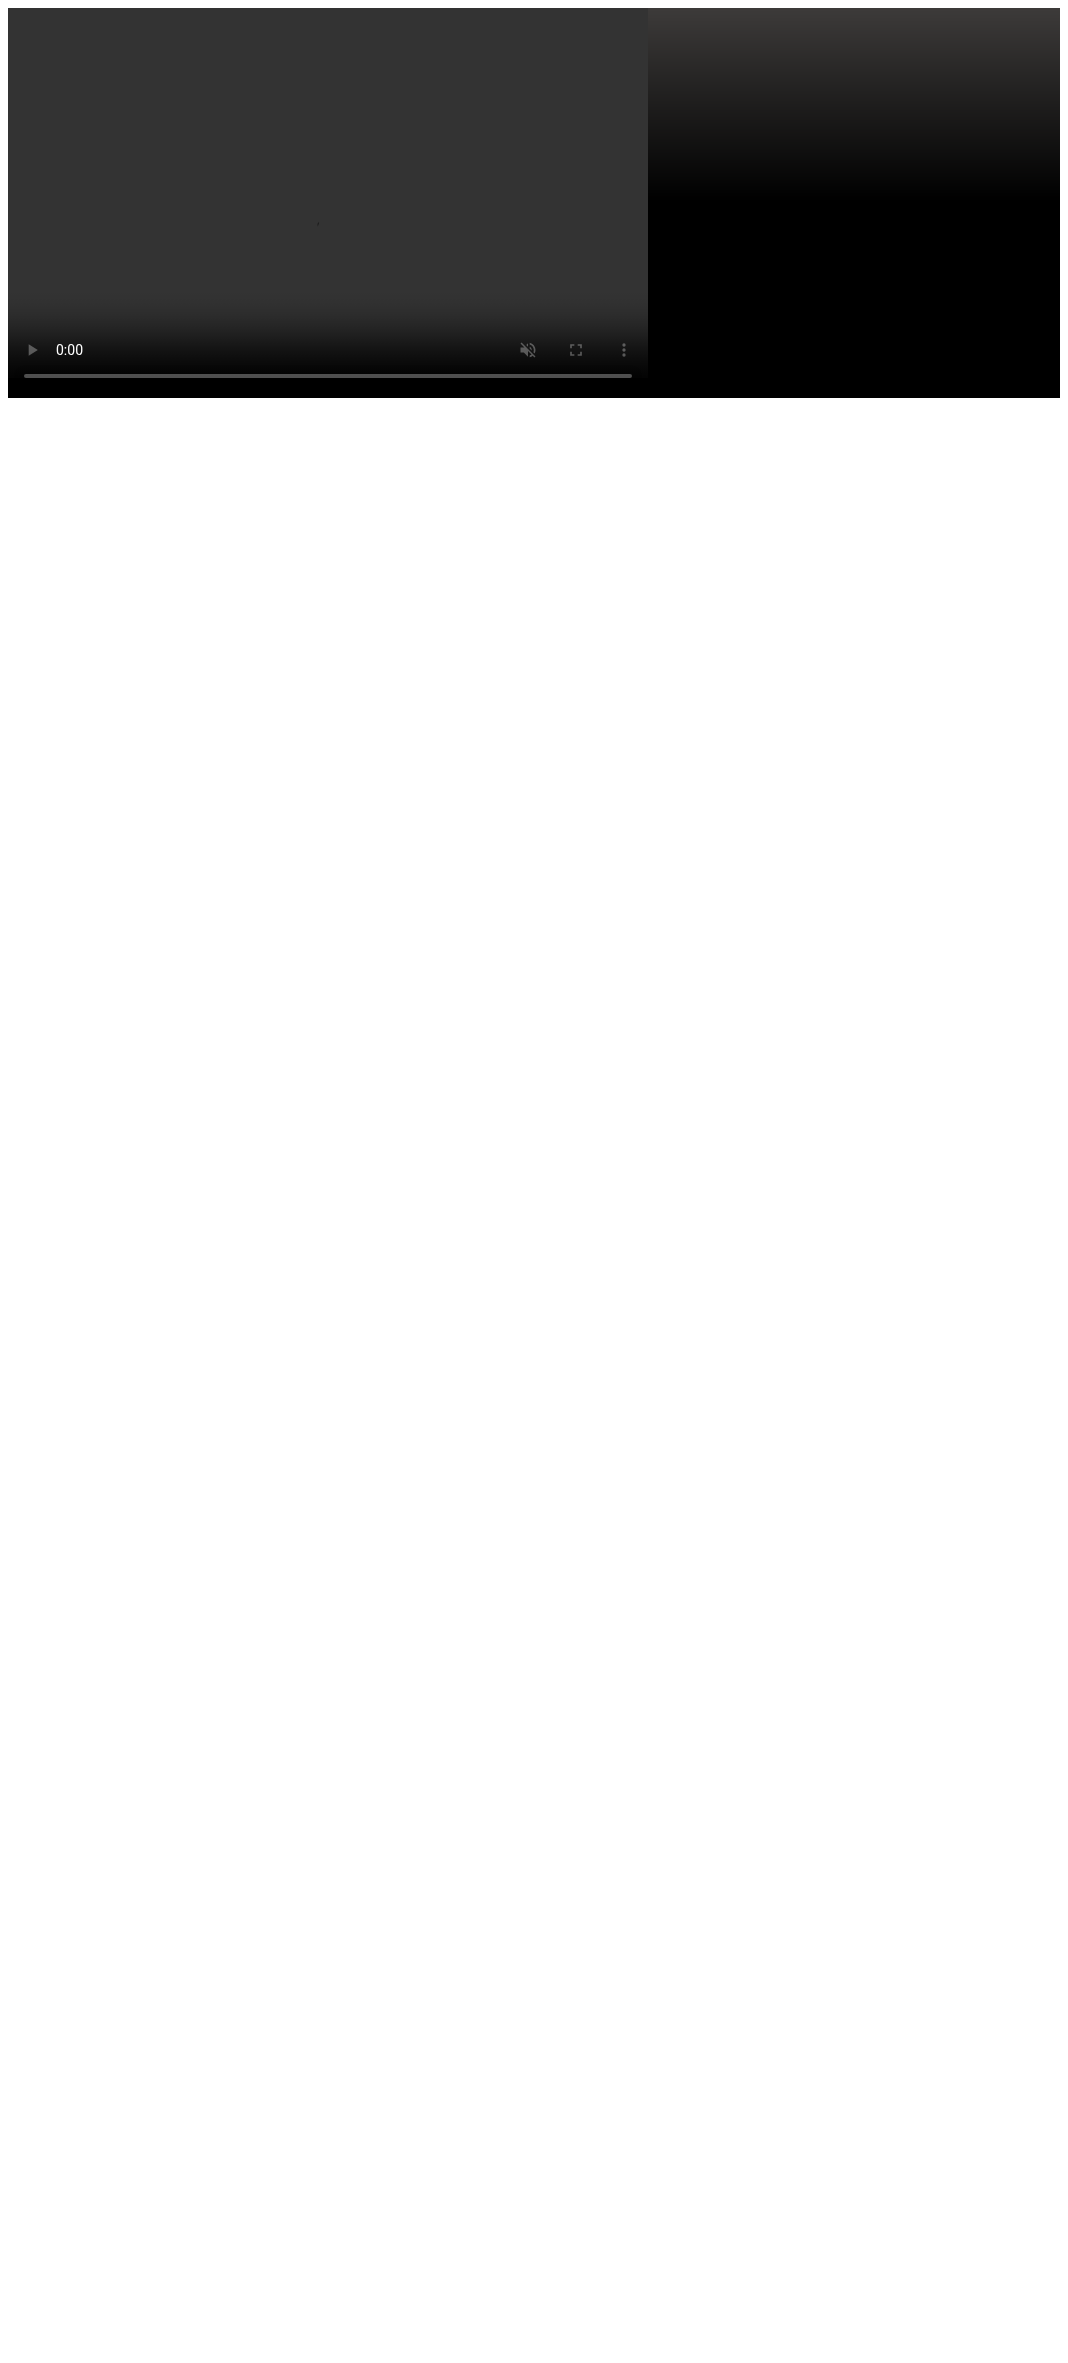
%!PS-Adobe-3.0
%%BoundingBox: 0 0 1068 2363
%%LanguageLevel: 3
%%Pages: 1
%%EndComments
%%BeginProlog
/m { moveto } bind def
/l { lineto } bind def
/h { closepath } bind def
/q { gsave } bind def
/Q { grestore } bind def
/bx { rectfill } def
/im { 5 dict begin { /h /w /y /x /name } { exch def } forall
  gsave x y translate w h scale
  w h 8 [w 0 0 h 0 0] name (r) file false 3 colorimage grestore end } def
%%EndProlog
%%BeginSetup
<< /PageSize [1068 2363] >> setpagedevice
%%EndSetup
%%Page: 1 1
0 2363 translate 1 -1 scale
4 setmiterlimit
1 setgray
0 0 1068 2363 bx
q 8 8 m 1060 8 l 1060 398 l 8 398 l h clip newpath
<< /ShadingType 2 /ColorSpace /DeviceRGB /Coords [534 8 534 398] /Extend [true true] /Function << /FunctionType 3 /Domain [0 1] /Functions [<< /FunctionType 2 /Domain [0 1] /C0 [0.239 0.231 0.227] /C1 [0 0 0] /N 1 >> << /FunctionType 2 /Domain [0 1] /C0 [0 0 0] /C1 [0 0 0] /N 1 >>] /Bounds [0.5] /Encode [0 1 0 1] >> >> shfill Q
(image0.raw) 8 8 640 370 im
showpage
%%EOF
